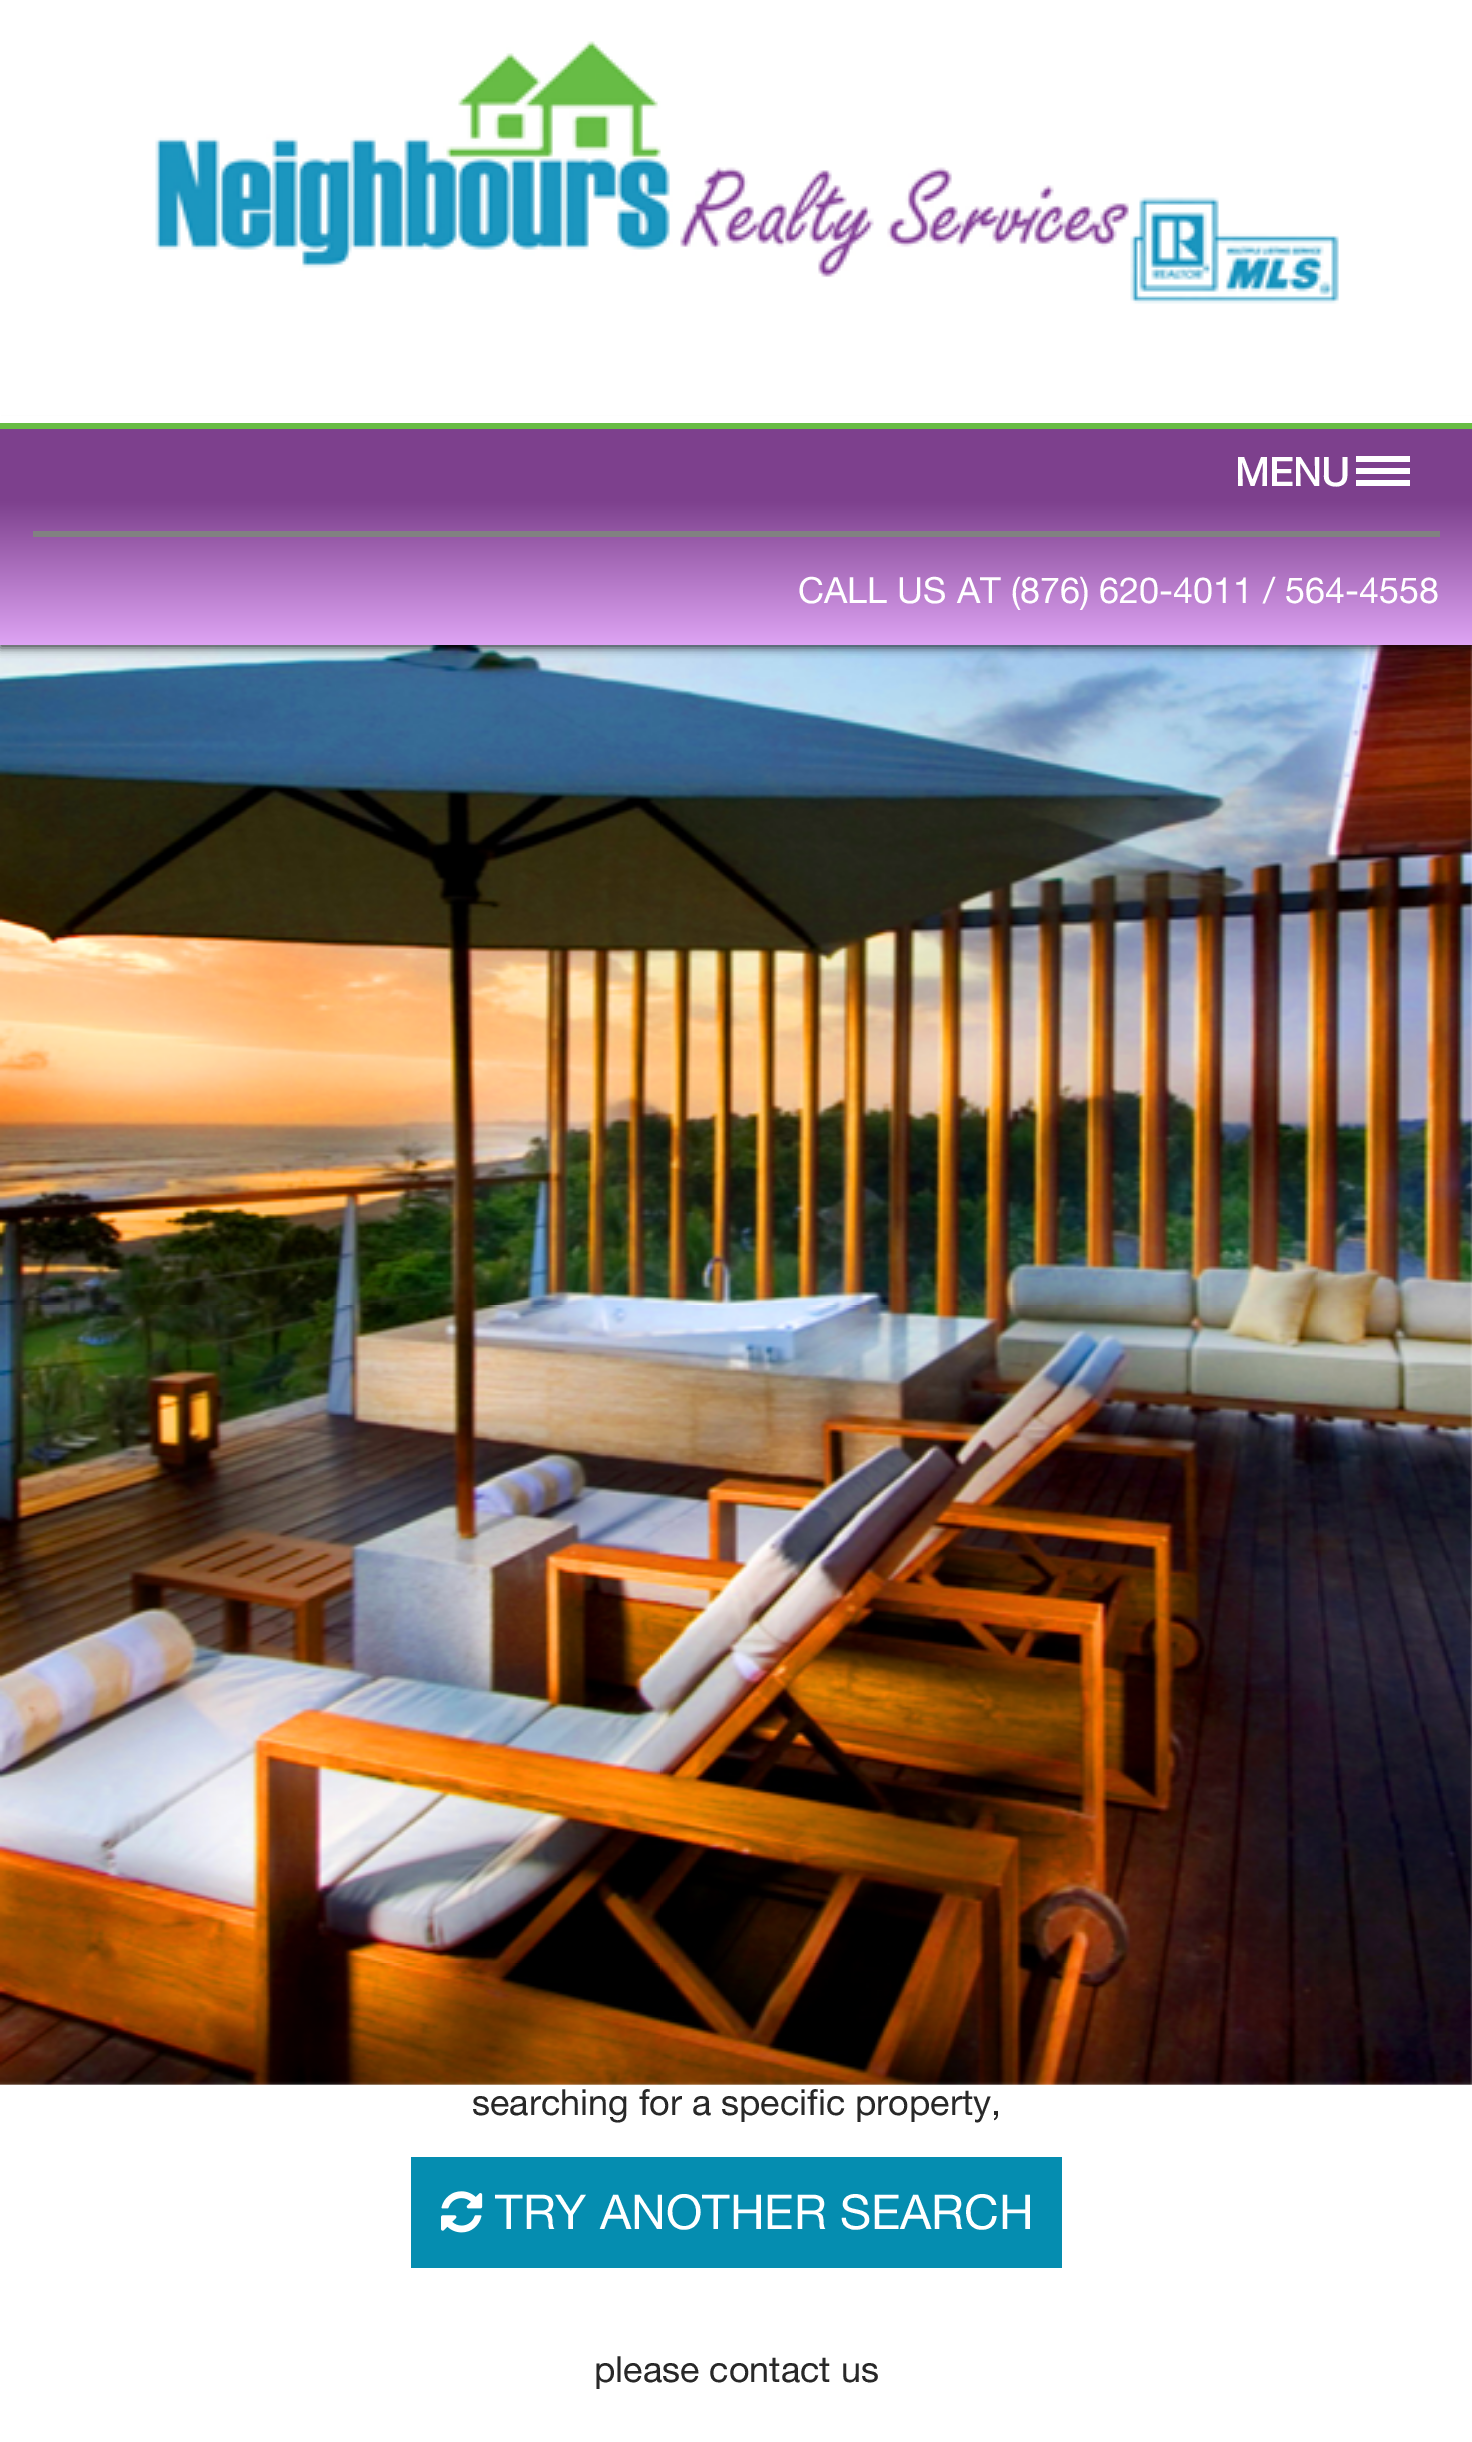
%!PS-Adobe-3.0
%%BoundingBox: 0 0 1472 2442
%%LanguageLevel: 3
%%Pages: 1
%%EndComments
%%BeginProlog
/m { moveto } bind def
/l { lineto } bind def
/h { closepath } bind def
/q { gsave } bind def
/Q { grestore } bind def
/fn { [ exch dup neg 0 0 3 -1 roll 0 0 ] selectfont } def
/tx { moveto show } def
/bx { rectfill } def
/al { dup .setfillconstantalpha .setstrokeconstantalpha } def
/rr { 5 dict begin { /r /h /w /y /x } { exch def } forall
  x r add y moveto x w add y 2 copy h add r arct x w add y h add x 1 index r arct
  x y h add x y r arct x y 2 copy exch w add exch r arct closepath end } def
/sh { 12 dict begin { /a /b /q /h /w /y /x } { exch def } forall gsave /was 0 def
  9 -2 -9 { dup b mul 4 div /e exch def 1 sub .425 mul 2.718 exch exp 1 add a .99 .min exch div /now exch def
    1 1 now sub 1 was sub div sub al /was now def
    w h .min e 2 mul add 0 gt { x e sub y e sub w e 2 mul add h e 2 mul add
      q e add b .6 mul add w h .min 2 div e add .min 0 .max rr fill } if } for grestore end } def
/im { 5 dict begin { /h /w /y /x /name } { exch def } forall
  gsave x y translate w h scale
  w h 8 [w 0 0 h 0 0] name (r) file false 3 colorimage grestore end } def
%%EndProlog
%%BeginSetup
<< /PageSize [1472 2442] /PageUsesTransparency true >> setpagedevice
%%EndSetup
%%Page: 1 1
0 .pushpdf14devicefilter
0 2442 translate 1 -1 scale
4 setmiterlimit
1 setgray
0 0 1472 2442 bx
(image1.raw) 0 645 1472 1440 im
0 setgray
0 426 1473 222 0 4.5 0.7 sh
1 setgray
0 416 1472 7 bx
(image0.raw) 155 41 1184 263 im
q 0 429 m 1472 429 l 1472 645 l 0 645 l h clip newpath
<< /ShadingType 2 /ColorSpace /DeviceRGB /Coords [737 429 737 645] /Extend [true true] /Function << /FunctionType 3 /Domain [0 1] /Functions [<< /FunctionType 2 /Domain [0 1] /C0 [0.49 0.251 0.553] /C1 [0.49 0.251 0.553] /N 1 >> << /FunctionType 2 /Domain [0 1] /C0 [0.49 0.251 0.553] /C1 [0.871 0.643 0.957] /N 1 >>] /Bounds [0.33] /Encode [0 1 0 1] >> >> shfill Q
0.408 0.737 0.271 setrgbcolor
0 423 1472 6 bx
/HelveticaNeue-Bold 39 fn
1 setgray
(MENU) 1235 486 tx
1356 480 54 6 bx
1356 468 54 6 bx
1356 456 54 6 bx
0.506 setgray
33 531 1407 6 bx
/HelveticaNeue-Regular 36 fn
1 setgray
(CALL US AT \(876\) 620-4011 / 564-4558) 798 603 tx
0.157 setgray
(searching for a specific property,) 472 2115 tx
0.02 0.553 0.69 setrgbcolor
411 2157 651 111 bx
(image2.raw) 441 2191 42 42 im
/HelveticaNeue-Regular 48 fn
1 setgray
(TRY ANOTHER SEARCH) 495 2229 tx
/HelveticaNeue-Regular 36 fn
0.157 setgray
(please contact us) 594 2382 tx
.poppdf14devicefilter showpage
%%EOF
